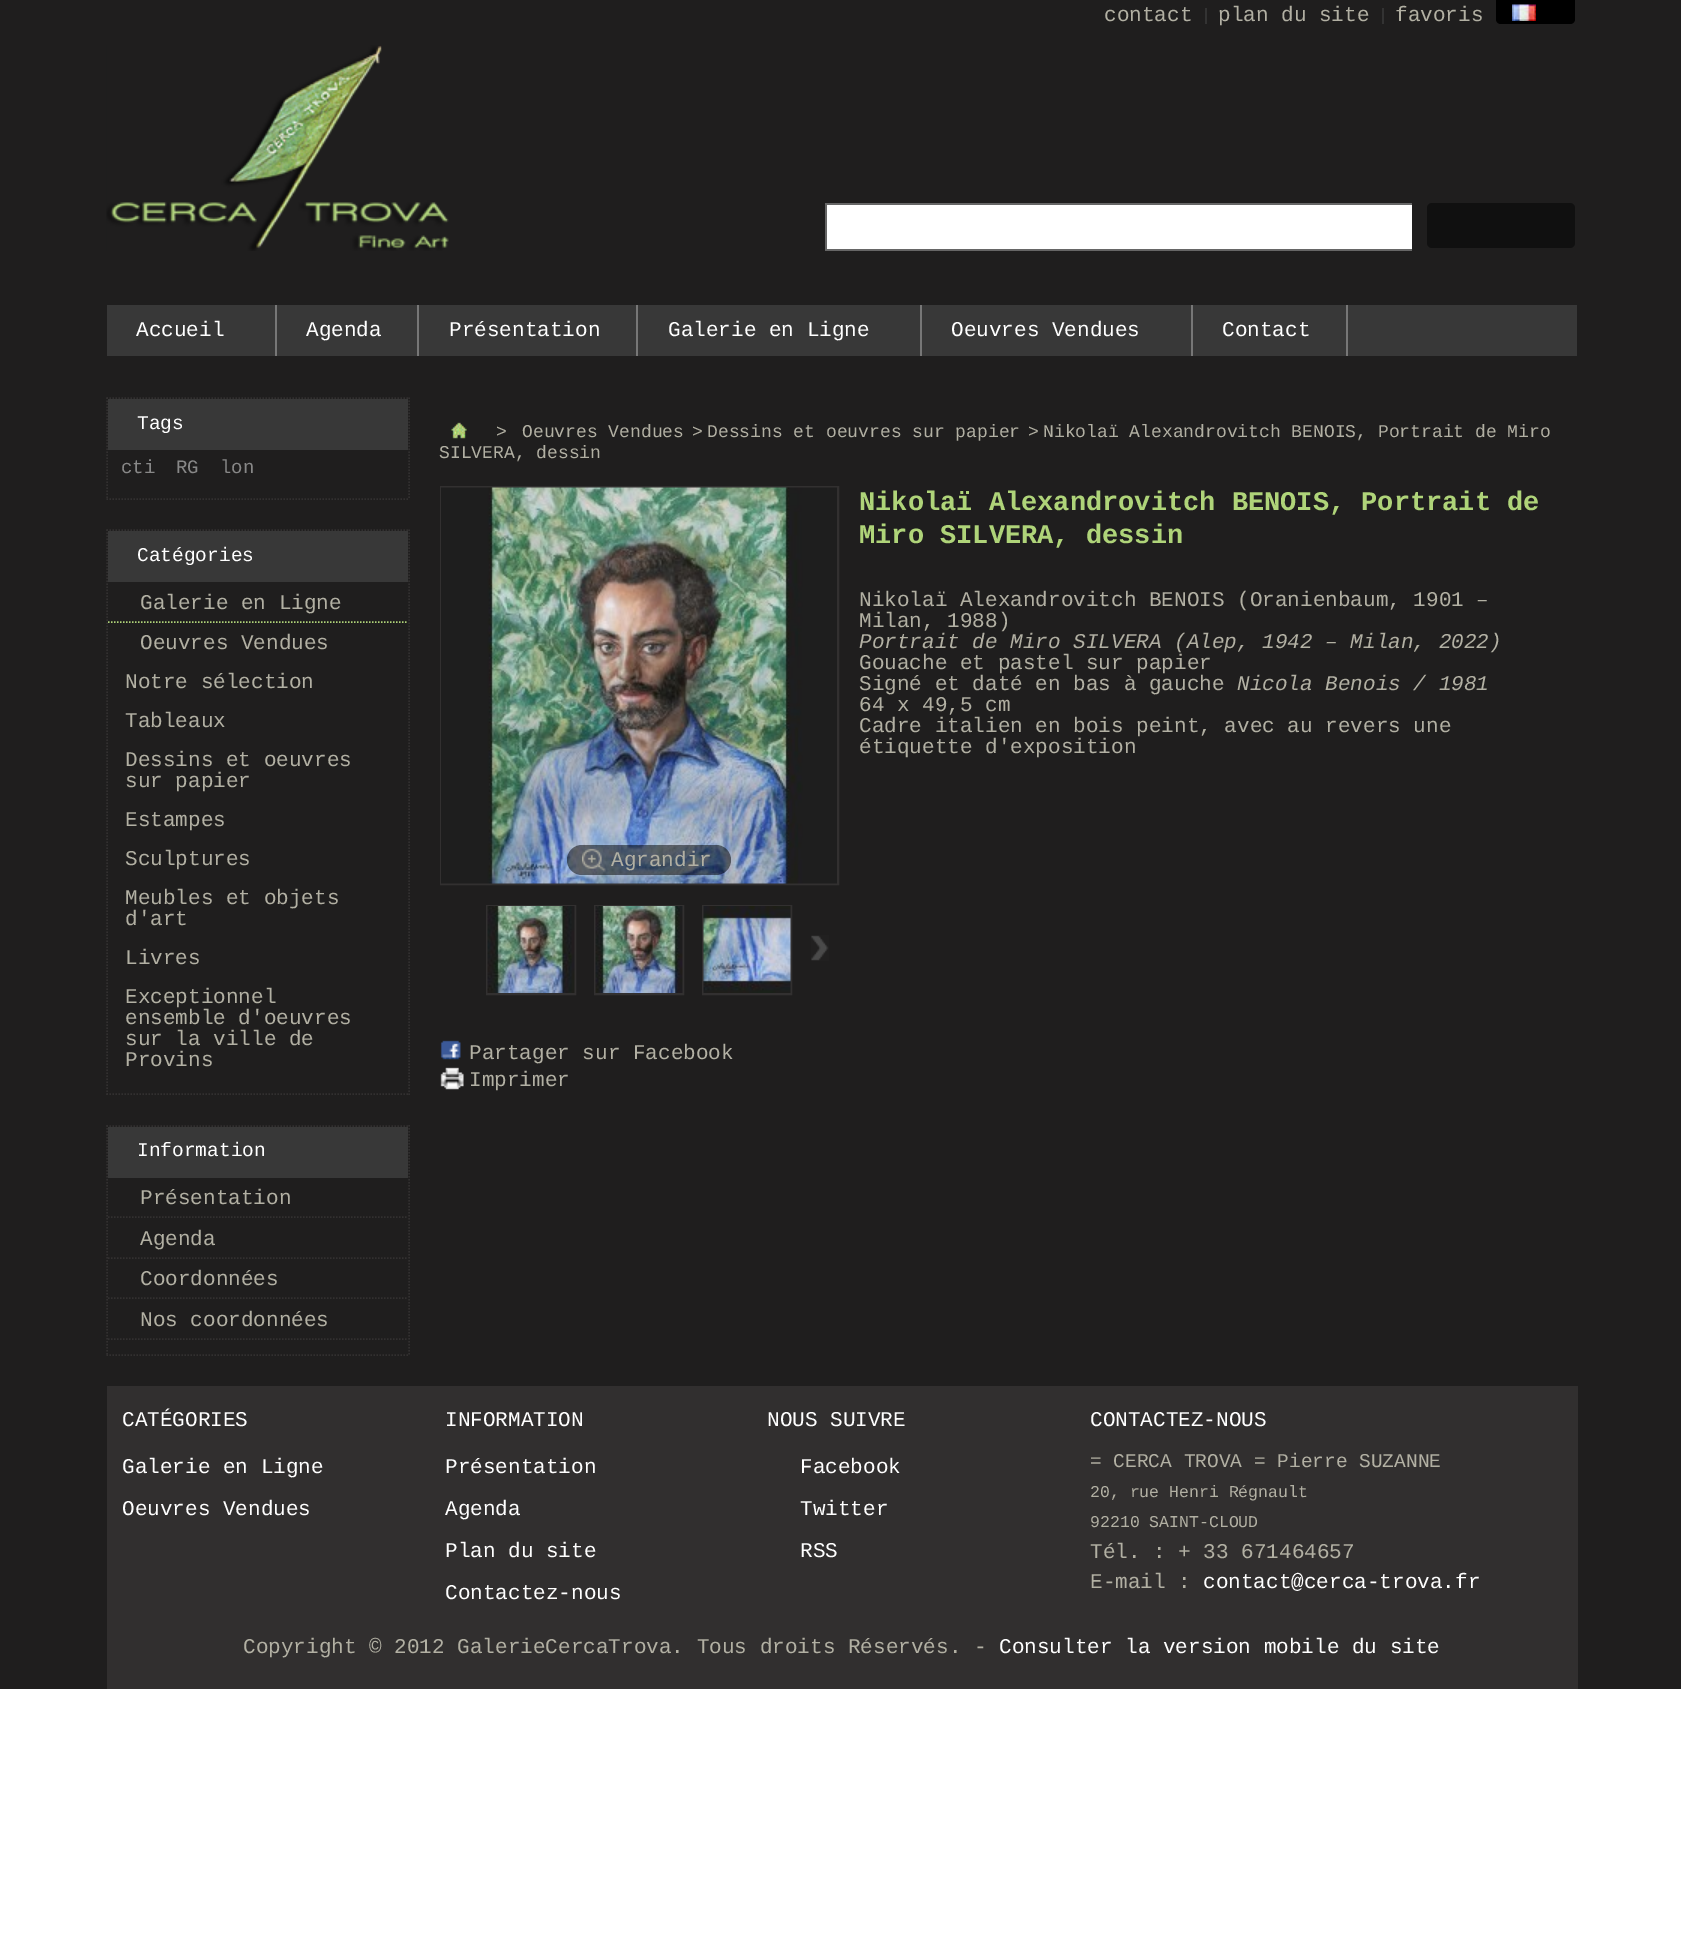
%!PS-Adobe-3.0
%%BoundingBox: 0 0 1681 1937
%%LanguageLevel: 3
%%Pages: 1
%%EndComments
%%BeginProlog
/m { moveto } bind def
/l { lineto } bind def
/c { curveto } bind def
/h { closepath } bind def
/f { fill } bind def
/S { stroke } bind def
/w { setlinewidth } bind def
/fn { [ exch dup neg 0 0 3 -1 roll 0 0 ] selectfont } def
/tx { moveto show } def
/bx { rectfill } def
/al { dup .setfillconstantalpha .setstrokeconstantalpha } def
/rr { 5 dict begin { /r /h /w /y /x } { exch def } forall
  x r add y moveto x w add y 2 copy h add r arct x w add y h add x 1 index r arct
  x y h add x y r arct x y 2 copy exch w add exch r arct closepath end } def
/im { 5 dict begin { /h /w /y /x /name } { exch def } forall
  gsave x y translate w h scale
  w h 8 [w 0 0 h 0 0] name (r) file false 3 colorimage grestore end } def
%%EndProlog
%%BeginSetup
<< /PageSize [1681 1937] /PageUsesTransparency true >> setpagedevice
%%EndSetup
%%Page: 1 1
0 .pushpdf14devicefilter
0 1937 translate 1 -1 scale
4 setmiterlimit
1 setgray
0 0 1681 1937 bx
0.122 0.118 0.118 setrgbcolor
0 0 1681 1689 bx
/LiberationMono-Regular 21 fn
0.698 0.69 0.639 setrgbcolor
(contact) 1104 21 tx
0.2 setgray
1205 8 2 16 bx
0.698 0.69 0.639 setrgbcolor
(plan du site) 1218 21 tx
0.2 setgray
1382 8 2 16 bx
0.698 0.69 0.639 setrgbcolor
(favoris) 1395 21 tx
0 setgray
1496 0 m 1575 0 l 1575 19 l 1575 22 1573 24 1570 24 c 1501 24 l 1498 24 1496 22 1496 19 c h f
(image0.raw) 1512 4 24 17 im
1 setgray
827 205 585 44 bx
0.4 setgray
825 203 587 2 bx
825 249 587 2 bx
825 203 2 48 bx
0.063 setgray
1427 203 148 45 5 rr f
(image1.raw) 106 45 343 206 im
0.22 setgray
107 305 1470 51 bx
0.467 setgray
275 305 2 51 bx
1 setgray
(Accueil) 136 336 tx
0.467 setgray
417 305 2 51 bx
1 setgray
(Agenda) 306 336 tx
0.467 setgray
636 305 2 51 bx
1 setgray
(Présentation) 449 336 tx
0.467 setgray
920 305 2 51 bx
1 setgray
(Galerie en Ligne) 668 336 tx
0.467 setgray
1191 305 2 51 bx
1 setgray
(Oeuvres Vendues) 951 336 tx
0.467 setgray
1346 305 2 51 bx
1 setgray
(Contact) 1222 336 tx
0.196 0.188 0.188 setrgbcolor
1.5 w
[1.5 1.5] 0 setdash
106.5 398 m 409.5 398 l S
409 397.5 m 409 499.5 l S
106.5 499 m 409.5 499 l S
107 397.5 m 107 499.5 l S
0.22 setgray
108 399 300 51 bx
/LiberationMono-Regular 19.5 fn
1 setgray
(Tags) 137 429 tx
/LiberationMono-Regular 19 fn
0.533 setgray
(cti) 121 473 tx
(RG) 176 473 tx
(lon) 220 473 tx
0.196 0.188 0.188 setrgbcolor
106.5 530 m 409.5 530 l S
409 529.5 m 409 1095 l S
106.5 1094 m 409.5 1094 l S
107 529.5 m 107 1095 l S
0.22 setgray
108 531 300 51 bx
/LiberationMono-Regular 19.5 fn
1 setgray
(Catégories) 137 561 tx
0.686 0.831 0.475 setrgbcolor
108 622 m 408 622 l S
/LiberationMono-Regular 21 fn
0.698 0.69 0.639 setrgbcolor
(Galerie en Ligne) 140 609 tx
(Oeuvres Vendues) 140 649 tx
(Notre sélection) 125 688 tx
(Tableaux) 125 727 tx
(Dessins et oeuvres) 125 766 tx
(sur papier) 125 787 tx
(Estampes) 125 826 tx
(Sculptures) 125 865 tx
(Meubles et objets) 125 904 tx
(d'art) 125 925 tx
(Livres) 125 964 tx
(Exceptionnel) 125 1003 tx
(ensemble d'oeuvres) 125 1024 tx
(sur la ville de) 125 1045 tx
(Provins) 125 1066 tx
0.196 0.188 0.188 setrgbcolor
106.5 1126 m 409.5 1126 l S
409 1125 m 409 1356 l S
106.5 1355 m 409.5 1355 l S
107 1125 m 107 1356 l S
0.22 setgray
108 1127 300 51 bx
/LiberationMono-Regular 19.5 fn
1 setgray
(Information) 137 1156 tx
0.196 0.188 0.188 setrgbcolor
108 1217 m 408 1217 l S
/LiberationMono-Regular 21 fn
0.698 0.69 0.639 setrgbcolor
(Présentation) 140 1204 tx
0.196 0.188 0.188 setrgbcolor
108 1258 m 408 1258 l S
0.698 0.69 0.639 setrgbcolor
(Agenda) 140 1245 tx
0.196 0.188 0.188 setrgbcolor
108 1298 m 408 1298 l S
0.698 0.69 0.639 setrgbcolor
(Coordonnées) 140 1285 tx
0.196 0.188 0.188 setrgbcolor
108 1339 m 408 1339 l S
0.698 0.69 0.639 setrgbcolor
(Nos coordonnées) 140 1326 tx
(image2.raw) 451 422 16 17 im
/LiberationMono-Regular 18 fn
(>) 496 437 tx
(Oeuvres Vendues) 522 437 tx
(>) 692 437 tx
(Dessins et oeuvres sur papier) 707 437 tx
(>) 1028 437 tx
(Nikolaï Alexandrovitch BENOIS, Portrait de Miro) 1043 437 tx
(SILVERA, dessin) 439 458 tx
/LiberationMono-Bold 27 fn
0.686 0.831 0.475 setrgbcolor
(Nikolaï Alexandrovitch BENOIS, Portrait de) 859 510 tx
(Miro SILVERA, dessin) 859 543 tx
/LiberationMono-Regular 21 fn
0.698 0.69 0.639 setrgbcolor
(Nikolaï Alexandrovitch BENOIS \(Oranienbaum, 1901 –) 859 606 tx
(Milan, 1988\)) 859 627 tx
/LiberationMono-Italic 21 fn
(Portrait de Miro SILVERA \(Alep, 1942 – Milan, 2022\)) 859 648 tx
/LiberationMono-Regular 21 fn
(Gouache et pastel sur papier) 859 669 tx
(Signé et daté en bas à gauche) 859 690 tx
/LiberationMono-Italic 21 fn
(Nicola Benois / 1981) 1237 690 tx
/LiberationMono-Regular 21 fn
(64 x 49,5 cm) 859 711 tx
(Cadre italien en bois peint, avec au revers une) 859 732 tx
(étiquette d'exposition) 859 753 tx
0.196 0.188 0.188 setrgbcolor
2 w
[] 0 setdash
441 487 397 397 rectstroke
(image3.raw) 441 487 396 397 im
0.5 al
0 setgray
567 845 164 30 15 rr f
1 al
(image4.raw) 582 848 24 24 im
0.698 0.69 0.639 setrgbcolor
(Agrandir) 611 866 tx
0.196 0.188 0.188 setrgbcolor
487 906 88 88 rectstroke
(image5.raw) 487 906 88 87 im
595 906 88 88 rectstroke
(image6.raw) 595 906 88 87 im
703 906 88 88 rectstroke
(image7.raw) 703 906 88 87 im
(image8.raw) 811 935 18 26 im
(image9.raw) 440 1040 21 20 im
0.698 0.69 0.639 setrgbcolor
(Partager sur Facebook) 469 1059 tx
(image10.raw) 440 1067 24 23 im
(Imprimer) 469 1086 tx
0.192 0.184 0.184 setrgbcolor
107 1386 1471 303 bx
1 setgray
(CATÉGORIES) 122 1426 tx
(Galerie en Ligne) 122 1473 tx
(Oeuvres Vendues) 122 1515 tx
(INFORMATION) 445 1426 tx
(Présentation) 445 1473 tx
(Agenda) 445 1515 tx
(Plan du site) 445 1557 tx
(Contactez-nous) 445 1599 tx
(NOUS SUIVRE) 767 1426 tx
(Facebook) 800 1473 tx
(Twitter) 800 1515 tx
(RSS) 800 1557 tx
(CONTACTEZ-NOUS) 1090 1426 tx
/LiberationMono-Regular 19.5 fn
0.698 0.69 0.639 setrgbcolor
(= CERCA TROVA = Pierre SUZANNE) 1090 1467 tx
/LiberationMono-Regular 16.5 fn
(20, rue Henri Régnault) 1090 1497 tx
(92210 SAINT-CLOUD) 1090 1527 tx
/LiberationMono-Regular 21 fn
(Tél. : + 33 671464657) 1090 1558 tx
(E-mail :) 1090 1588 tx
1 setgray
(contact@cerca-trova.fr) 1203 1588 tx
0.698 0.69 0.639 setrgbcolor
(Copyright © 2012 GalerieCercaTrova. Tous droits Réservés. -) 243 1653 tx
1 setgray
(Consulter la version mobile du site) 999 1653 tx
.poppdf14devicefilter showpage
%%EOF
